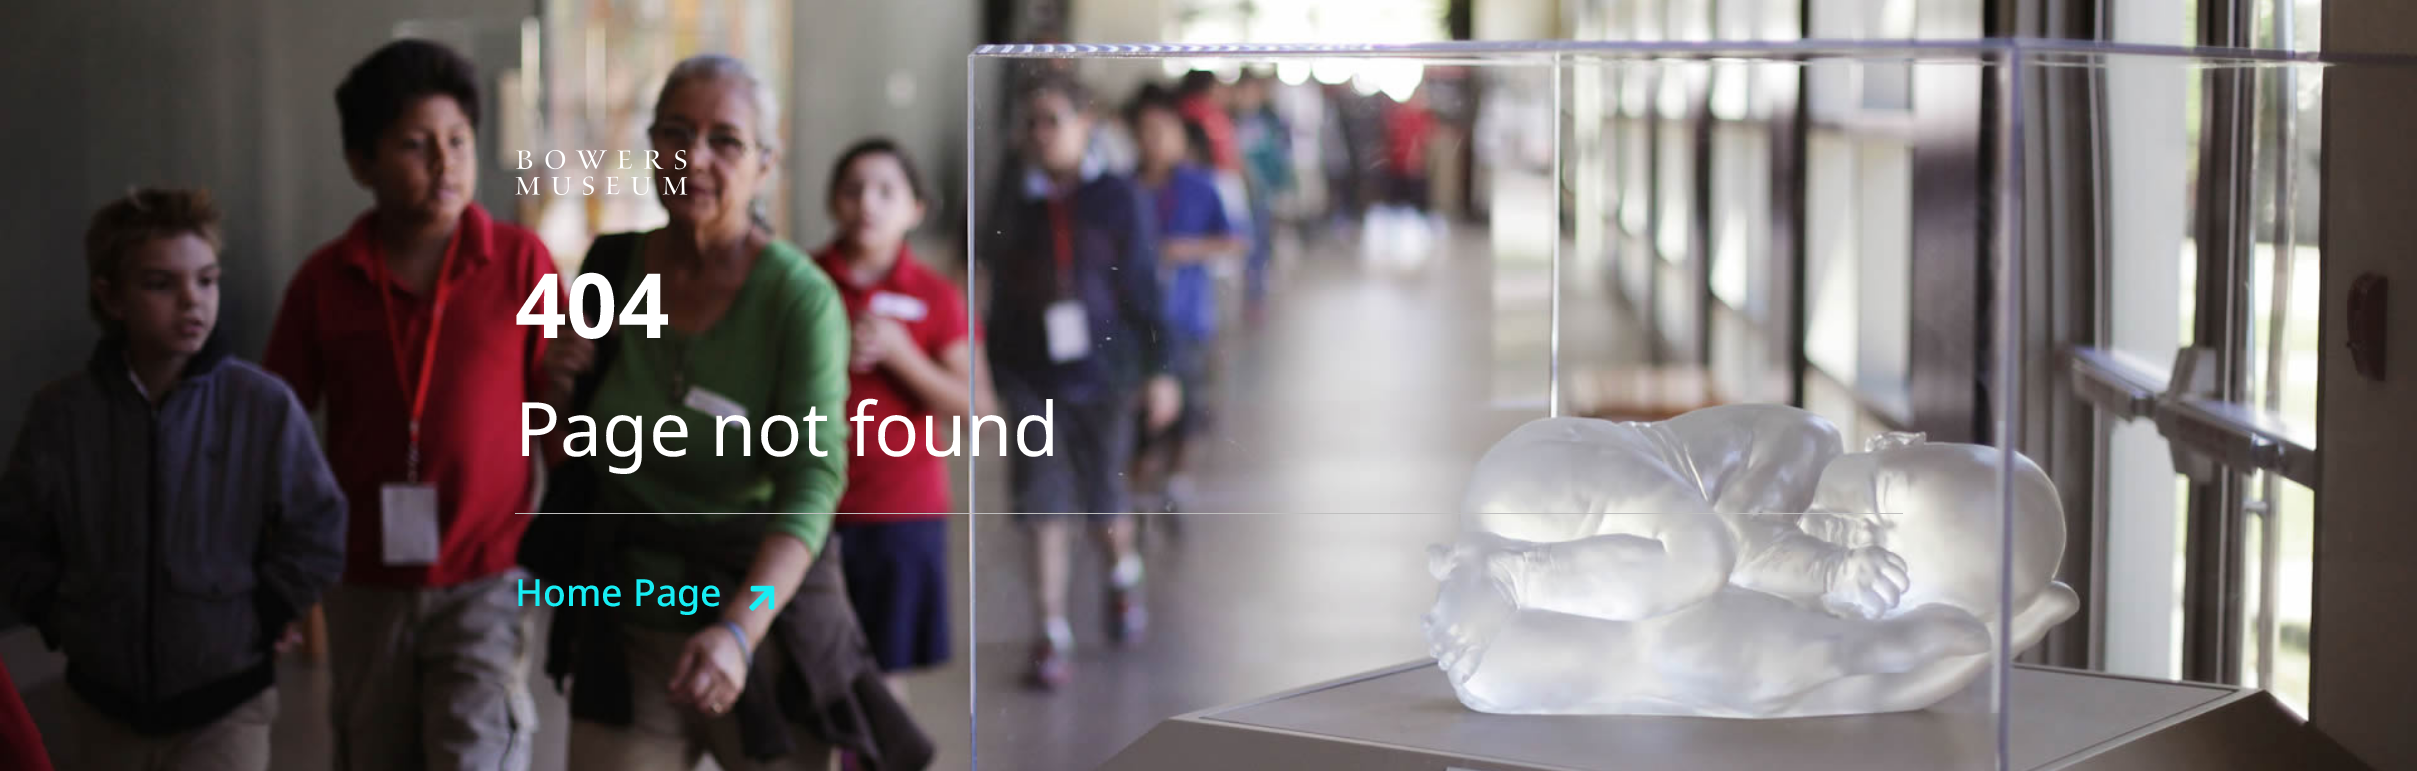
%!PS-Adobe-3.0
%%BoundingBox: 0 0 2417 771
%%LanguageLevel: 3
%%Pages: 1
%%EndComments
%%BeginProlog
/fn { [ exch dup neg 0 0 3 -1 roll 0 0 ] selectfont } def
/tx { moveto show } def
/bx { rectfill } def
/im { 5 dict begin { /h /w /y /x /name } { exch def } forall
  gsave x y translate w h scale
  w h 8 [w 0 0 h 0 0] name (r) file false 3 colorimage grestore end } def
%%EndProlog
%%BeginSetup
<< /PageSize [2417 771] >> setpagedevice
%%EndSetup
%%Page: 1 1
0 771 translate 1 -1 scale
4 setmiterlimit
1 setgray
0 0 2417 771 bx
(image0.raw) 0 0 2417 771 im
(image1.raw) 515 150 173 45 im
/NotoSans-Bold 90 fn
(404) 515 338 tx
0.749 setgray
515 513 1388 1 bx
/NotoSans-Regular 75 fn
1 setgray
(Page not found) 515 456 tx
/NotoSans-Medium 37.5 fn
0.086 0.929 0.953 setrgbcolor
(Home Page) 515 606 tx
(image2.raw) 749 585 26 26 im
showpage
%%EOF
